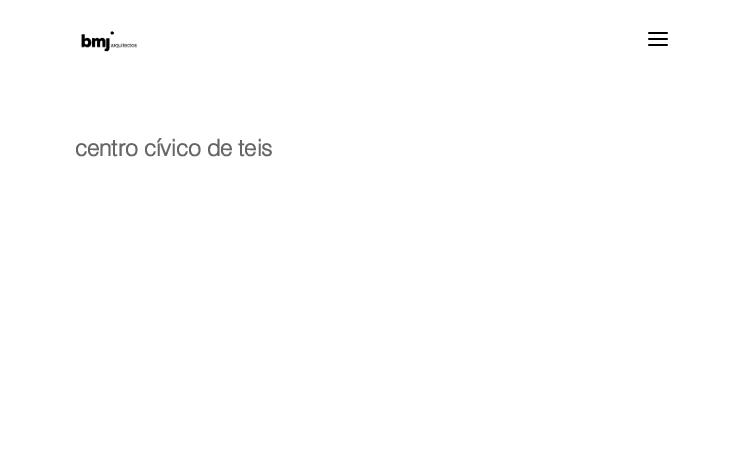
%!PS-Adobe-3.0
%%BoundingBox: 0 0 749 475
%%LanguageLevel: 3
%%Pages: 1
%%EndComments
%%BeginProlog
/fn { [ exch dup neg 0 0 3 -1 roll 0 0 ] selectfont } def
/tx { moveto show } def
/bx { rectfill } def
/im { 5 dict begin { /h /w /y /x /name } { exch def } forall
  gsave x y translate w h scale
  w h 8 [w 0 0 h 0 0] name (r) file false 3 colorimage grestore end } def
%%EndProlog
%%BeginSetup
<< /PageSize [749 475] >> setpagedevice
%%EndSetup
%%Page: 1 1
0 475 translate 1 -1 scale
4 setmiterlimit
1 setgray
0 0 749 475 bx
(image0.raw) 81 31 57 21 im
(image1.raw) 648 32 20 14 im
/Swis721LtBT-Bold 23 fn
0.4 setgray
(centro cívico de teis) 75 156 tx
showpage
%%EOF
